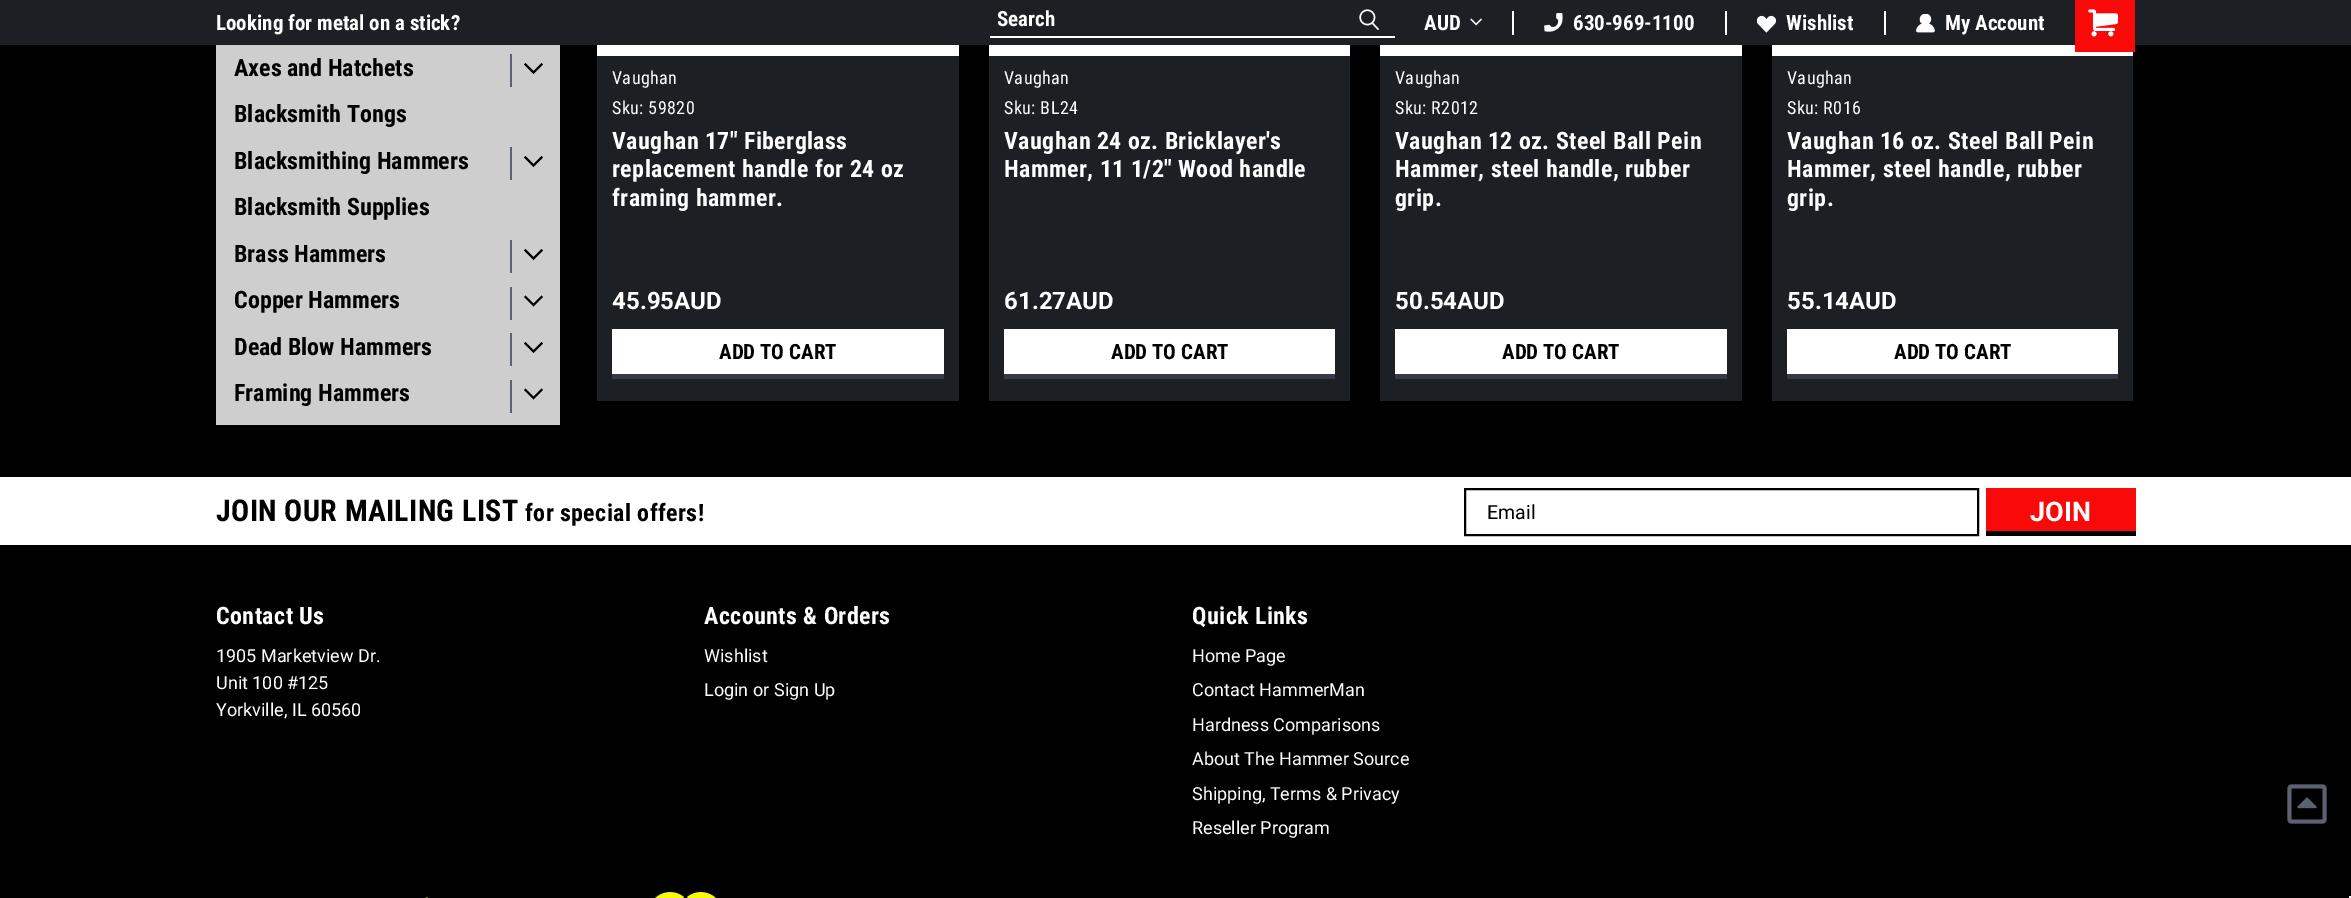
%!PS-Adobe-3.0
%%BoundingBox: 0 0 2351 898
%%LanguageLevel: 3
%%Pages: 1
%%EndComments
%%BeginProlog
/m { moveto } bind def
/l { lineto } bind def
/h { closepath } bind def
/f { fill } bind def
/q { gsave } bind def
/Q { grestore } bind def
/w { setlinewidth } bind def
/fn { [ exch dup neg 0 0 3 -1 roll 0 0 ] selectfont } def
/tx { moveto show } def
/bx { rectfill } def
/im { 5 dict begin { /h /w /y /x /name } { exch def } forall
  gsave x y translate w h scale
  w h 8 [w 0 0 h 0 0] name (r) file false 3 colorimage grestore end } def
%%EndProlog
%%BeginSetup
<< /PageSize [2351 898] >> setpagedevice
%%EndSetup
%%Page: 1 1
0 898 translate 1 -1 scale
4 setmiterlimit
0 setgray
0 0 2351 898 bx
0.11 0.122 0.141 setrgbcolor
0 0 2351 45 bx
/RobotoCondensed-Bold 21 fn
1 setgray
(Looking for metal on a stick?) 216 30 tx
990 36 405 2 bx
q
998 6 345 24 rectclip
(Search) 997 26 tx
Q
(image0.raw) 1359 9 20 21 im
1512 11 2 24 bx
(AUD) 1424 30 tx
(image1.raw) 1470 18 12 8 im
1725 11 2 24 bx
(image2.raw) 1544 13 19 19 im
(630-969-1100) 1573 30 tx
1884 11 2 24 bx
(image3.raw) 1757 15 19 18 im
(Wishlist) 1786 30 tx
(image4.raw) 1916 14 19 19 im
(My Account) 1945 30 tx
1772 45 361 11 bx
0.98 0.035 0.035 setrgbcolor
2075 0 60 52 bx
(image5.raw) 2088 9 30 28 im
0.808 setgray
216 45 344 380 bx
/RobotoCondensed-Bold 24 fn
0 setgray
(Axes and Hatchets) 234 76 tx
0.357 0.376 0.451 setrgbcolor
510 54 2 33 bx
0 setgray
543 64.5 m 533.5 74 l 524 64.5 l 525.5 63 l 533.5 71 l 541.5 63 l h f
(Blacksmith Tongs) 234 122 tx
(Blacksmithing Hammers) 234 169 tx
0.357 0.376 0.451 setrgbcolor
510 147 2 33 bx
0 setgray
543 157.5 m 533.5 167 l 524 157.5 l 525.5 156 l 533.5 164 l 541.5 156 l h f
(Blacksmith Supplies) 234 215 tx
(Brass Hammers) 234 262 tx
0.357 0.376 0.451 setrgbcolor
510 240 2 33 bx
0 setgray
543 250.5 m 533.5 260 l 524 250.5 l 525.5 249 l 533.5 257 l 541.5 249 l h f
(Copper Hammers) 234 308 tx
0.357 0.376 0.451 setrgbcolor
510 287 2 33 bx
0 setgray
543 297 m 533.5 306.5 l 524 297 l 525.5 295.5 l 533.5 303.5 l 541.5 295.5 l h f
(Dead Blow Hammers) 234 355 tx
0.357 0.376 0.451 setrgbcolor
510 333 2 33 bx
0 setgray
543 343.5 m 533.5 353 l 524 343.5 l 525.5 342 l 533.5 350 l 541.5 342 l h f
(Framing Hammers) 234 401 tx
0.357 0.376 0.451 setrgbcolor
510 380 2 33 bx
0 setgray
543 390 m 533.5 399.5 l 524 390 l 525.5 388.5 l 533.5 396.5 l 541.5 388.5 l h f
0.11 0.122 0.141 setrgbcolor
597 56 362 345 bx
1 setgray
597 45 362 11 bx
/RobotoCondensed-Regular 18 fn
612 84 m 0.4 0 (Vaughan) ashow
612 114 m 0.4 0 (Sku: 59820) ashow
/RobotoCondensed-Bold 24 fn
612 149 m 0.4 0 (Vaughan 17" Fiberglass) ashow
612 177 m 0.4 0 (replacement handle for 24 oz) ashow
612 206 m 0.4 0 (framing hammer.) ashow
/Roboto-Bold 24 fn
(45.95AUD) 612 309 tx
612 329 332 45 bx
0.212 0.224 0.271 setrgbcolor
612 374 332 5 bx
/RobotoCondensed-Bold 21 fn
0 setgray
(ADD TO CART) 719 359 tx
0.11 0.122 0.141 setrgbcolor
989 56 361 345 bx
1 setgray
989 45 361 11 bx
/RobotoCondensed-Regular 18 fn
1004 84 m 0.4 0 (Vaughan) ashow
1004 114 m 0.4 0 (Sku: BL24) ashow
/RobotoCondensed-Bold 24 fn
1004 149 m 0.4 0 (Vaughan 24 oz. Bricklayer's) ashow
1004 177 m 0.4 0 (Hammer, 11 1/2" Wood handle) ashow
/Roboto-Bold 24 fn
(61.27AUD) 1004 309 tx
1004 329 331 45 bx
0.212 0.224 0.271 setrgbcolor
1004 374 331 5 bx
/RobotoCondensed-Bold 21 fn
0 setgray
(ADD TO CART) 1111 359 tx
0.11 0.122 0.141 setrgbcolor
1380 56 362 345 bx
1 setgray
1380 45 362 11 bx
/RobotoCondensed-Regular 18 fn
1395 84 m 0.4 0 (Vaughan) ashow
1395 114 m 0.4 0 (Sku: R2012) ashow
/RobotoCondensed-Bold 24 fn
1395 149 m 0.4 0 (Vaughan 12 oz. Steel Ball Pein) ashow
1395 177 m 0.4 0 (Hammer, steel handle, rubber) ashow
1395 206 m 0.4 0 (grip.) ashow
/Roboto-Bold 24 fn
(50.54AUD) 1395 309 tx
1395 329 332 45 bx
0.212 0.224 0.271 setrgbcolor
1395 374 332 5 bx
/RobotoCondensed-Bold 21 fn
0 setgray
(ADD TO CART) 1502 359 tx
0.11 0.122 0.141 setrgbcolor
1772 56 361 345 bx
/RobotoCondensed-Regular 18 fn
1 setgray
1787 84 m 0.4 0 (Vaughan) ashow
1787 114 m 0.4 0 (Sku: R016) ashow
/RobotoCondensed-Bold 24 fn
1787 149 m 0.4 0 (Vaughan 16 oz. Steel Ball Pein) ashow
1787 177 m 0.4 0 (Hammer, steel handle, rubber) ashow
1787 206 m 0.4 0 (grip.) ashow
/Roboto-Bold 24 fn
(55.14AUD) 1787 309 tx
1787 329 331 45 bx
0.212 0.224 0.271 setrgbcolor
1787 374 331 5 bx
/RobotoCondensed-Bold 21 fn
0 setgray
(ADD TO CART) 1894 359 tx
1 setgray
0 477 2351 68 bx
/RobotoCondensed-Bold 30 fn
0 setgray
216 521 m 0.4 0 (JOIN OUR MAILING LIST) ashow
/RobotoCondensed-Bold 24 fn
525 521 m 0.4 0 (for special offers!) ashow
2 w
1465 489 513 46 rectstroke
/Roboto-Regular 19.5 fn
(Email) 1487 519 tx
0.98 0.035 0.035 setrgbcolor
1986 488 150 43 bx
0 setgray
1986 531 150 5 bx
/Roboto-Bold 27 fn
1 setgray
(JOIN) 2030 521 tx
/RobotoCondensed-Bold 24 fn
216 624 m 0.4 0 (Contact Us) ashow
/Roboto-Regular 18 fn
(1905 Marketview Dr.) 216 662 tx
(Unit 100 #125) 216 689 tx
(Yorkville, IL 60560) 216 716 tx
/RobotoCondensed-Bold 24 fn
704 624 m 0.4 0 (Accounts & Orders) ashow
/Roboto-Regular 18 fn
(Wishlist) 704 662 tx
(Login or) 704 696 tx
(Sign Up) 774 696 tx
/RobotoCondensed-Bold 24 fn
1192 624 m 0.4 0 (Quick Links) ashow
/Roboto-Regular 18 fn
(Home Page) 1192 662 tx
(Contact HammerMan) 1192 696 tx
(Hardness Comparisons) 1192 731 tx
(About The Hammer Source) 1192 765 tx
(Shipping, Terms & Privacy) 1192 800 tx
(Reseller Program) 1192 834 tx
(image6.raw) 425 897 3 1 im
(image7.raw) 655 892 61 6 im
(image8.raw) 2287 784 40 40 im
0.961 setgray
2349 896 2 2 bx
showpage
%%EOF
